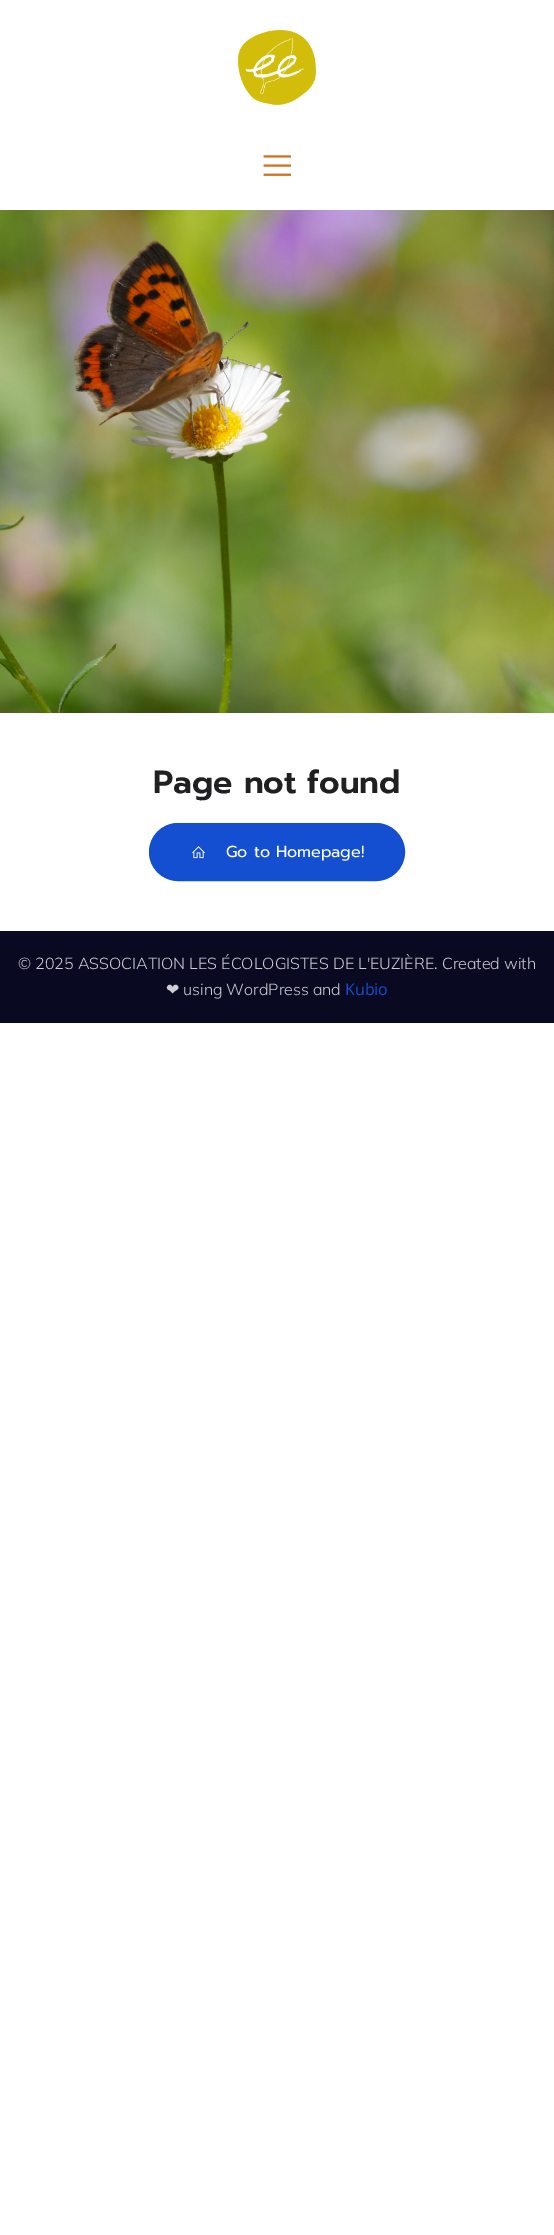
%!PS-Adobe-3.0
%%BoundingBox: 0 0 554 2235
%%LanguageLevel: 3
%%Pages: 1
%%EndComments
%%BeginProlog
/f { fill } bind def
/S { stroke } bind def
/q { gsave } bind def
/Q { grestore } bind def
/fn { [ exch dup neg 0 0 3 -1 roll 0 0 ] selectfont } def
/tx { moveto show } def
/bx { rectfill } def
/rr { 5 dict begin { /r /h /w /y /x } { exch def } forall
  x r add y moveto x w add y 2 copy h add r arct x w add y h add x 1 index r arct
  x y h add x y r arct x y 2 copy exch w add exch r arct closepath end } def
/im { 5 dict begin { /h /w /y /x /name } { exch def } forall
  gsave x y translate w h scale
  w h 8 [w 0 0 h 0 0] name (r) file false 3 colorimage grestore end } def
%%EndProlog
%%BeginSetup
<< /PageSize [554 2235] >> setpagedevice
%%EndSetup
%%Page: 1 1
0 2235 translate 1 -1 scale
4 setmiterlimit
1 setgray
0 0 554 2235 bx
(image0.raw) 237 30 79 76 im
(image1.raw) 263 155 28 21 im
(image2.raw) 0 210 554 503 im
/Prompt-SemiBold 32 fn
0.125 0.125 0.133 setrgbcolor
(Page not found) 153 793 tx
0.078 0.31 0.82 setrgbcolor
149.5 823.5 255 57 28.5 rr q f Q
S
(image3.raw) 192 846 13 13 im
/Prompt-Regular 16 fn
1 setgray
(Go to Homepage!) 226 857 tx
0.035 0.035 0.129 setrgbcolor
0 931 554 92 bx
/Mulish-Light 16 fn
0.808 0.808 0.827 setrgbcolor
(© 2025 ASSOCIATION LES ÉCOLOGISTES DE L'EUZIÈRE. Created with) 18 969 tx
/DejaVuSans-Regular 16 fn
(❤) 166 995 tx
/Mulish-Light 16 fn
(using WordPress and) 183 995 tx
/OpenSans-Regular 16 fn
0.078 0.31 0.82 setrgbcolor
(Kubio) 345 995 tx
showpage
%%EOF
